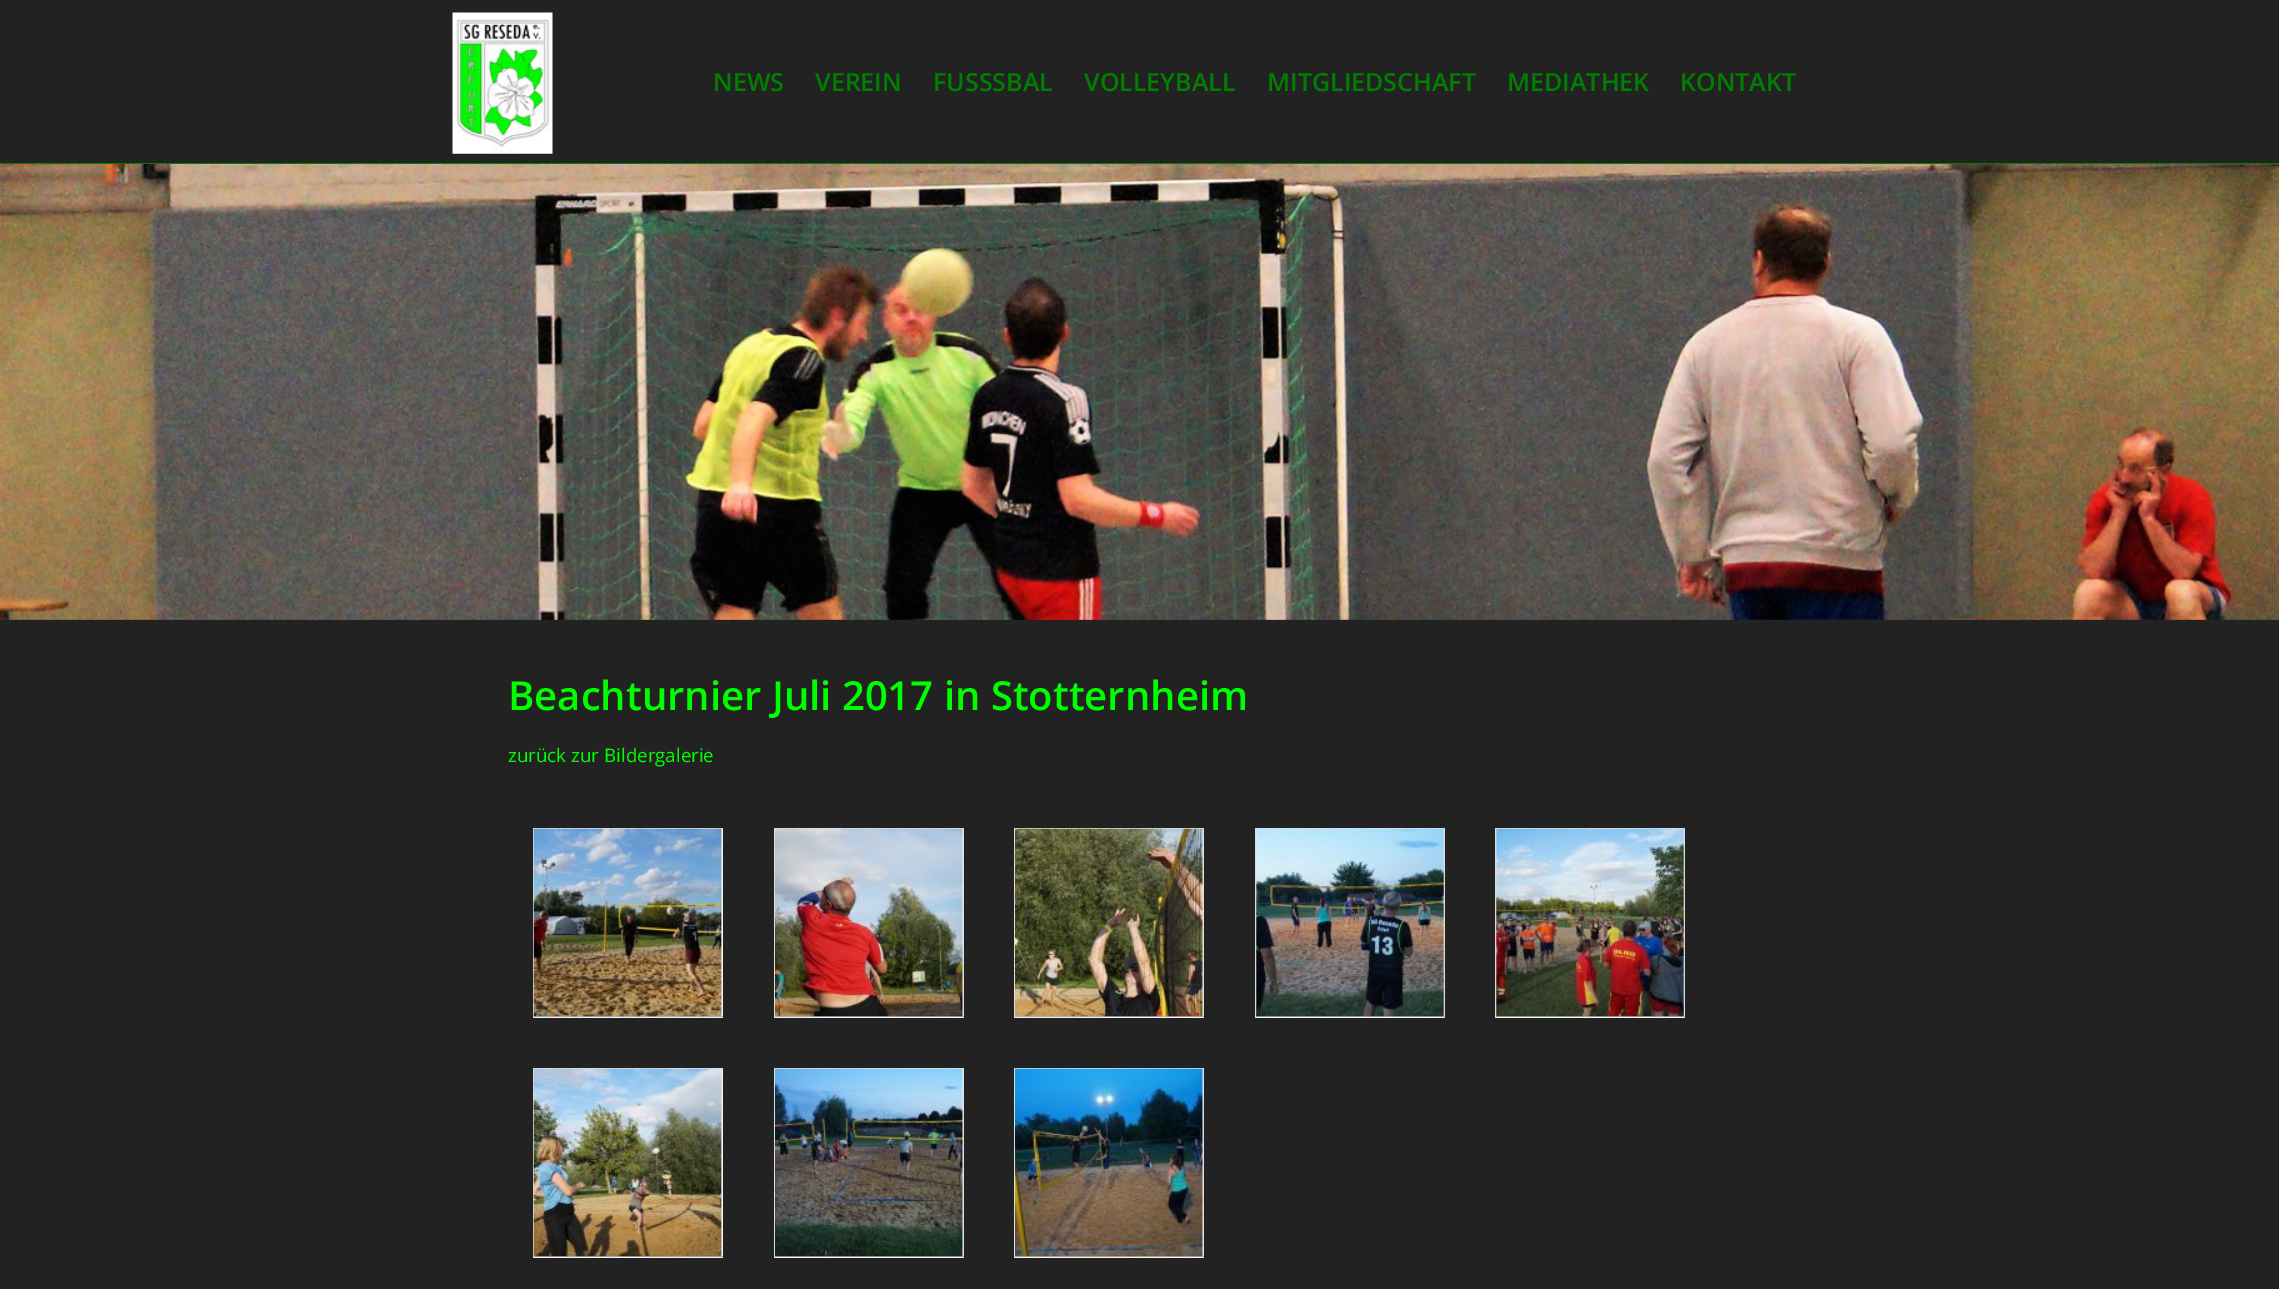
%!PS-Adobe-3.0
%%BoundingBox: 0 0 2279 1289
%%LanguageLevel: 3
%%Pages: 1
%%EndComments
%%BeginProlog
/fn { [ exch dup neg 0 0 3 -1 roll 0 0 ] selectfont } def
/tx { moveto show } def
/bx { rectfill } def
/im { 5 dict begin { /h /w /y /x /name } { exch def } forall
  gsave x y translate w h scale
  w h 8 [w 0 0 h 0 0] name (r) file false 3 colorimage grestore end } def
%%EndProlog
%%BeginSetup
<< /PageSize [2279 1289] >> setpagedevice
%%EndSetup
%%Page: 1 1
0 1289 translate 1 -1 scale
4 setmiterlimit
0.133 setgray
0 0 2279 1289 bx
0 0.502 0 setrgbcolor
0 163 2279 1 bx
(image0.raw) 452 12 101 142 im
/OpenSans-SemiBold 25 fn
(NEWS) 713 91 tx
(VEREIN) 815 91 tx
(FUSSSBAL) 933 91 tx
(VOLLEYBALL) 1084 91 tx
(MITGLIEDSCHAFT) 1267 91 tx
(MEDIATHEK) 1507 91 tx
(KONTAKT) 1680 91 tx
(image1.raw) 0 164 2279 456 im
/OpenSans-SemiBold 40 fn
0 1 0 setrgbcolor
(Beachturnier Juli 2017 in Stotternheim) 508 710 tx
/OpenSans-Regular 18.75 fn
(zurück zur Bildergalerie) 508 762 tx
0.953 setgray
534 829 189 189 bx
0.867 setgray
533 828 190 1 bx
721 828 1 190 bx
0.698 setgray
533 1016 190 1 bx
0.867 setgray
533 828 1 190 bx
(image2.raw) 533 828 189 189 im
0.953 setgray
775 829 188 189 bx
0.867 setgray
774 828 190 1 bx
963 828 1 190 bx
0.698 setgray
774 1016 190 1 bx
0.867 setgray
774 828 1 190 bx
(image3.raw) 775 828 188 189 im
0.953 setgray
1015 829 188 189 bx
0.867 setgray
1014 828 190 1 bx
1203 828 1 190 bx
0.698 setgray
1014 1016 190 1 bx
0.867 setgray
1014 828 1 190 bx
(image4.raw) 1015 828 188 189 im
0.953 setgray
1256 829 188 189 bx
0.867 setgray
1255 828 190 1 bx
1444 828 1 190 bx
0.698 setgray
1255 1016 190 1 bx
0.867 setgray
1255 828 1 190 bx
(image5.raw) 1256 828 188 189 im
0.953 setgray
1496 829 188 189 bx
0.867 setgray
1495 828 190 1 bx
1684 828 1 190 bx
0.698 setgray
1495 1016 190 1 bx
0.867 setgray
1495 828 1 190 bx
(image6.raw) 1496 828 188 189 im
0.953 setgray
534 1069 189 189 bx
0.867 setgray
533 1068 190 1 bx
721 1068 1 190 bx
0.698 setgray
533 1256 190 1 bx
0.867 setgray
533 1068 1 190 bx
(image7.raw) 533 1068 189 189 im
0.953 setgray
775 1069 188 189 bx
0.867 setgray
774 1068 190 1 bx
963 1068 1 190 bx
0.698 setgray
774 1256 190 1 bx
0.867 setgray
774 1068 1 190 bx
(image8.raw) 775 1068 188 189 im
0.953 setgray
1015 1069 188 189 bx
0.867 setgray
1014 1068 190 1 bx
1203 1068 1 190 bx
0.698 setgray
1014 1256 190 1 bx
0.867 setgray
1014 1068 1 190 bx
(image9.raw) 1015 1068 188 189 im
showpage
%%EOF
